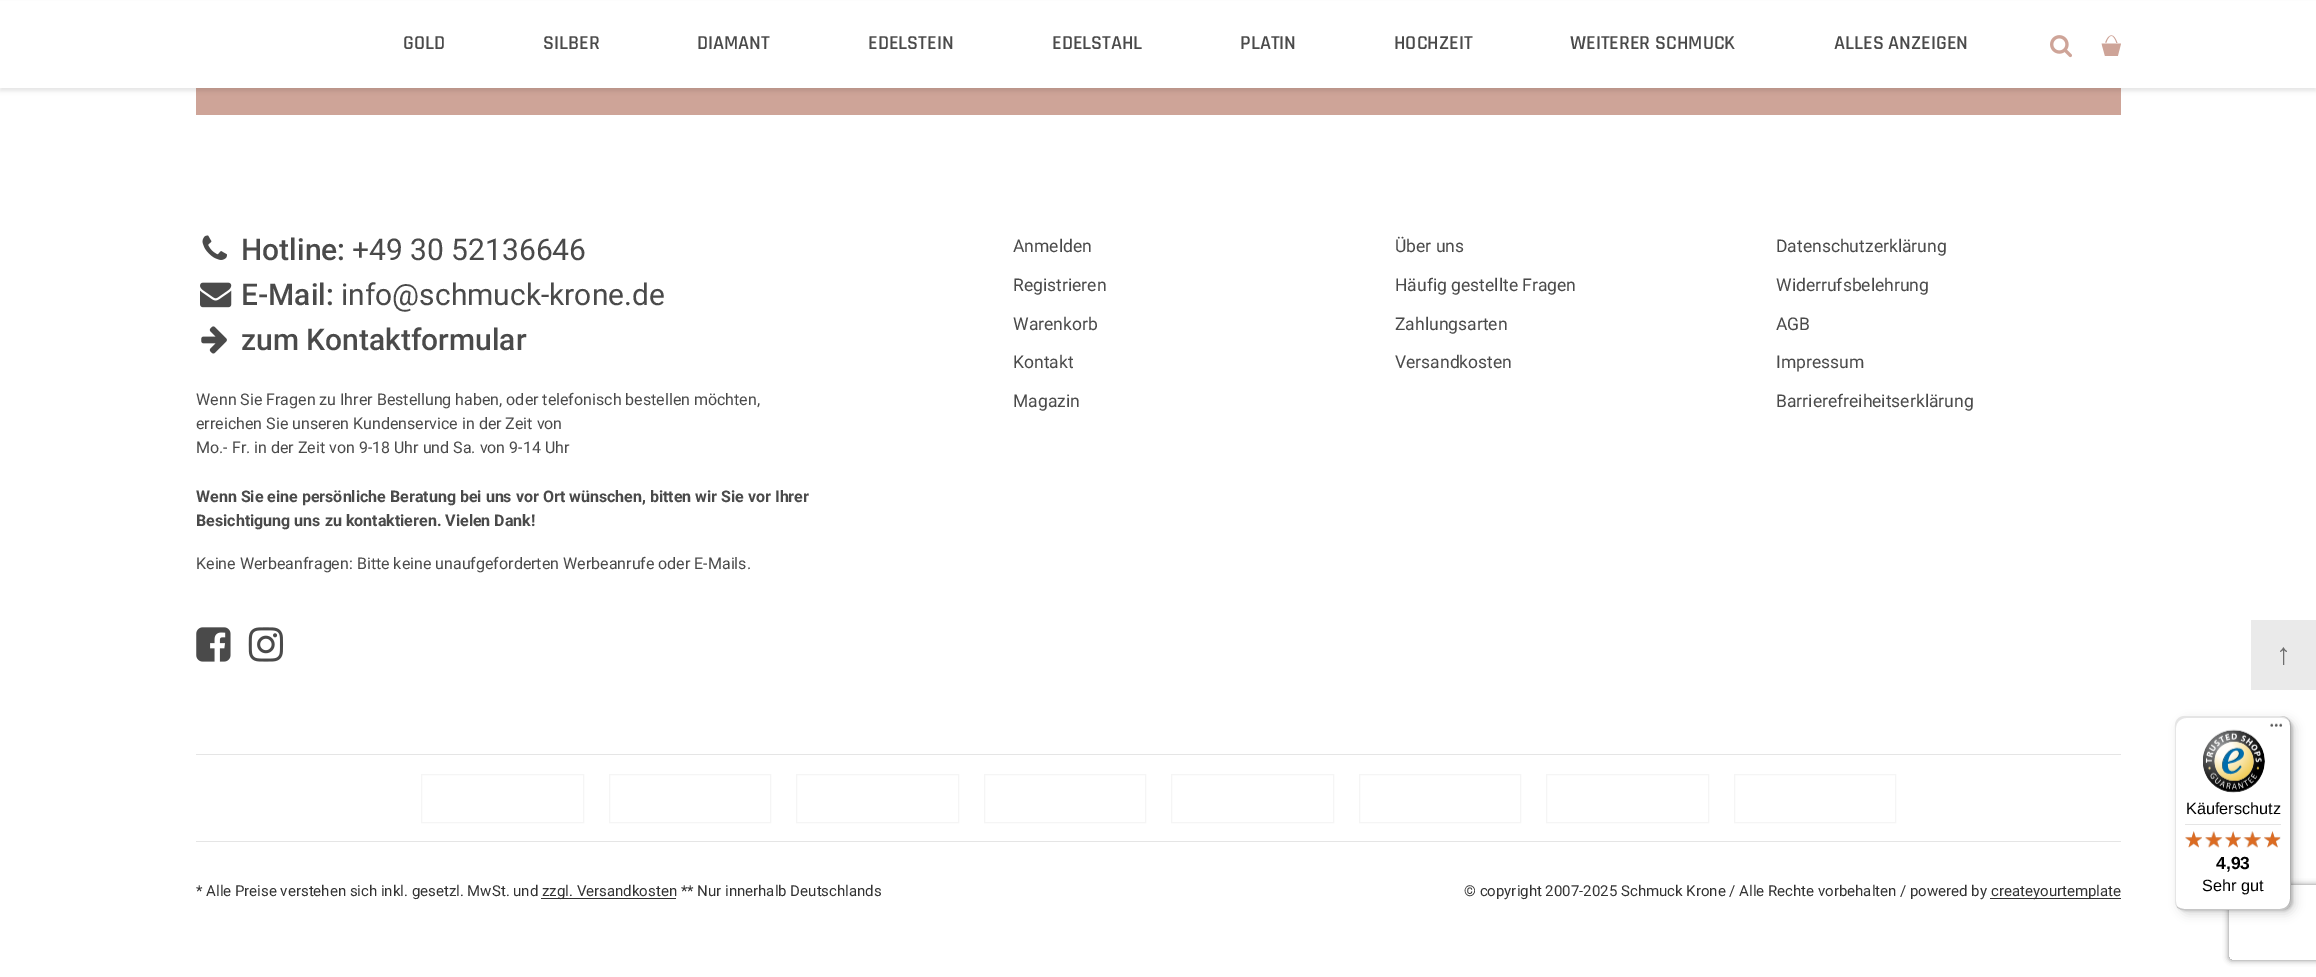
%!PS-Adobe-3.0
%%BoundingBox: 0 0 2316 977
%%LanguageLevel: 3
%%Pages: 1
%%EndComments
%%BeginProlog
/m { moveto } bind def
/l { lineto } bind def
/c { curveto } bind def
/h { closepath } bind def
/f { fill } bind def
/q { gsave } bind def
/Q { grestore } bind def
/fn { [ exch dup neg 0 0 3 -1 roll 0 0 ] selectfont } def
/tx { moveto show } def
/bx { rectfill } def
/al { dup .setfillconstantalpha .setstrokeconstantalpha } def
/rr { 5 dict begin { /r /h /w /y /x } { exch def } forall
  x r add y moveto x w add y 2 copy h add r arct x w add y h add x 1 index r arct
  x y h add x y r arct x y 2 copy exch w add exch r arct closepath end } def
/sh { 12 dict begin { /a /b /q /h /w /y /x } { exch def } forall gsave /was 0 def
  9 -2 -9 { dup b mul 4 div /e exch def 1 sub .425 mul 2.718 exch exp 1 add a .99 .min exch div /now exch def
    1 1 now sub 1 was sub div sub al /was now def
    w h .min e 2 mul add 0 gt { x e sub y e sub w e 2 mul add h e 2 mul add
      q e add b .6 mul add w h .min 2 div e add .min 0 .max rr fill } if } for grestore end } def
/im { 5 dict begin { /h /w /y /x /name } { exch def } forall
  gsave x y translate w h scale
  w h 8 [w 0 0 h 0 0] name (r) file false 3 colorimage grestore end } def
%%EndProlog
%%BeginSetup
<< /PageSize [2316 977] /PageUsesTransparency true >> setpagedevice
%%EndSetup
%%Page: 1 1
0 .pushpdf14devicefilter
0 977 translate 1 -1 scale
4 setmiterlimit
1 setgray
0 0 2316 977 bx
0.808 0.643 0.596 setrgbcolor
196 88 1925 27 bx
0 setgray
0 4 2316 87 0 2 0.1 sh
1 setgray
0 1 2316 87 bx
/Rajdhani-SemiBold 20 fn
0.29 setgray
(GOLD) 403 49 tx
(SILBER) 543 49 tx
(DIAMANT) 697 49 tx
(EDELSTEIN) 868 49 tx
(EDELSTAHL) 1052 49 tx
(PLATIN) 1240 49 tx
(HOCHZEIT) 1394 49 tx
(WEITERER SCHMUCK) 1570 49 tx
(ALLES ANZEIGEN) 1834 49 tx
(image0.raw) 2050 35 22 23 im
(image1.raw) 2101 35 20 21 im
(image2.raw) 202 235 25 25 im
/Roboto-Medium 30 fn
(Hotline:) 241 260 tx
/Roboto-Regular 30 fn
(+49 30 52136646) 352 260 tx
(image3.raw) 200 282 32 26 im
/Roboto-Medium 30 fn
(E-Mail:) 241 305 tx
/Roboto-Regular 30 fn
(info@schmuck-krone.de) 341 305 tx
(image4.raw) 201 326 26 28 im
/Roboto-Medium 30 fn
(zum Kontaktformular) 241 350 tx
/Roboto-Regular 16 fn
(Wenn Sie Fragen zu Ihrer Bestellung haben, oder telefonisch bestellen möchten,) 196 405 tx
(erreichen Sie unseren Kundenservice in der Zeit von) 196 429 tx
(Mo.- Fr. in der Zeit von 9-18 Uhr und Sa. von 9-14 Uhr) 196 453 tx
/Roboto-Bold 16 fn
(Wenn Sie eine persönliche Beratung bei uns vor Ort wünschen, bitten wir Sie vor Ihrer) 196 502 tx
(Besichtigung uns zu kontaktieren. Vielen Dank!) 196 526 tx
/Roboto-Regular 16 fn
(Keine Werbeanfragen: Bitte keine unaufgeforderten Werbeanrufe oder E-Mails.) 196 569 tx
(image5.raw) 196 627 35 35 im
(image6.raw) 248 627 36 35 im
/Roboto-Regular 17.5 fn
(Anmelden) 1013 252 tx
(Registrieren) 1013 291 tx
(Warenkorb) 1013 330 tx
(Kontakt) 1013 368 tx
(Magazin) 1013 407 tx
(Über uns) 1395 252 tx
(Häufig gestellte Fragen) 1395 291 tx
(Zahlungsarten) 1395 330 tx
(Versandkosten) 1395 368 tx
(Datenschutzerklärung) 1776 252 tx
(Widerrufsbelehrung) 1776 291 tx
(AGB) 1776 330 tx
(Impressum) 1776 368 tx
(Barrierefreiheitserklärung) 1776 407 tx
0.898 setgray
196 754 1925 1 bx
196 841 1925 1 bx
0.961 setgray
421.5 774.5 162 48 rectstroke
609.5 774.5 161 48 rectstroke
796.5 774.5 162 48 rectstroke
984.5 774.5 161 48 rectstroke
1171.5 774.5 162 48 rectstroke
1359.5 774.5 161 48 rectstroke
1546.5 774.5 162 48 rectstroke
1734.5 774.5 161 48 rectstroke
/Roboto-Regular 15 fn
0.2 setgray
(* Alle Preise verstehen sich inkl. gesetzl. MwSt. und) 196 896 tx
541 898 135 1 bx
(zzgl. Versandkosten ** Nur innerhalb Deutschlands) 542 896 tx
(© copyright 2007-2025 Schmuck Krone / Alle Rechte vorbehalten / powered by) 1464 896 tx
1990 898 131 1 bx
(createyourtemplate) 1991 896 tx
0.918 setgray
2251 620 65 70 bx
/LiberationSans-Regular 30 fn
0.431 setgray
(↑) 2276 664 tx
q
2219 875 m 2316 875 l 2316 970 l 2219 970 l h 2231.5 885 m 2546.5 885 l 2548 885 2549 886 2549 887.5 c 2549 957.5 l 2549 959 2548 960 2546.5 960 c 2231.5 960 l 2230 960 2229 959 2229 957.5 c 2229 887.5 l 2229 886 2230 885 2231.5 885 c h eoclip newpath
0.502 setgray
2229 885 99 75 2.5 3 1 sh
Q
0 setgray
2179 720 116 194 10 5 0.15 sh
2176 718 117 193 10 1 0.15 sh
1 setgray
2175 716 116 194 10 rr f
0.1 al
0 setgray
2186 718 m 2282 718 l 2285 718 2288 719 2290 722 c 2288 718 2285 716 2281 716 c 2185 716 l 2179 716 2175 720 2175 726 c 2175 900 l 2175 903 2176 906 2178 908 c 2177 906 2176 904 2176 901 c 2176 728 l 2176 722 2181 718 2186 718 c h f
0.2 al
2177 907 m 2179 909 2182 910 2185 910 c 2281 910 l 2287 910 2291 906 2291 900 c 2291 726 l 2291 724 2290 721 2289 720 c 2290 721 2290 723 2290 725 c 2290 899 l 2290 904 2286 909 2280 909 c 2184 909 l 2181 909 2179 908 2177 907 c h f
0.196 setgray
2177 906 m 2179 909 2182 910 2185 910 c 2281 910 l 2287 910 2291 906 2291 900 c 2291 726 l 2291 720 2287 716 2281 716 c 2280 716 l 2286 716 2290 720 2290 726 c 2290 899 l 2290 905 2286 909 2280 909 c 2184 909 l 2182 909 2179 908 2177 906 c h f
1 al
(image7.raw) 2270 723 13 4 im
0.3 al
1 setgray
2177 906 m 2179 909 2182 910 2185 910 c 2281 910 l 2287 910 2291 906 2291 900 c 2291 899 l 2291 905 2286 909 2281 909 c 2184 909 l 2182 909 2179 908 2177 906 c h f
1 al
(image8.raw) 2203 729 62 64 im
/LiberationSans-Regular 16.25 fn
0 setgray
(Käuferschutz) 2186 814 tx
0.898 setgray
2185 824 96 1 bx
(image9.raw) 2185 831 17 16 im
(image10.raw) 2205 831 17 17 im
(image11.raw) 2225 831 16 17 im
(image12.raw) 2243 831 18 17 im
(image13.raw) 2264 831 17 17 im
(image14.raw) 2185 831 17 17 im
(image15.raw) 2205 831 18 17 im
(image16.raw) 2225 831 16 17 im
(image17.raw) 2243 831 18 17 im
(image18.raw) 2264 831 16 17 im
/LiberationSans-Bold 17.5 fn
0 setgray
(4,93) 2216 869 tx
/LiberationSans-Regular 16.25 fn
(Sehr gut) 2202 891 tx
.poppdf14devicefilter showpage
%%EOF
